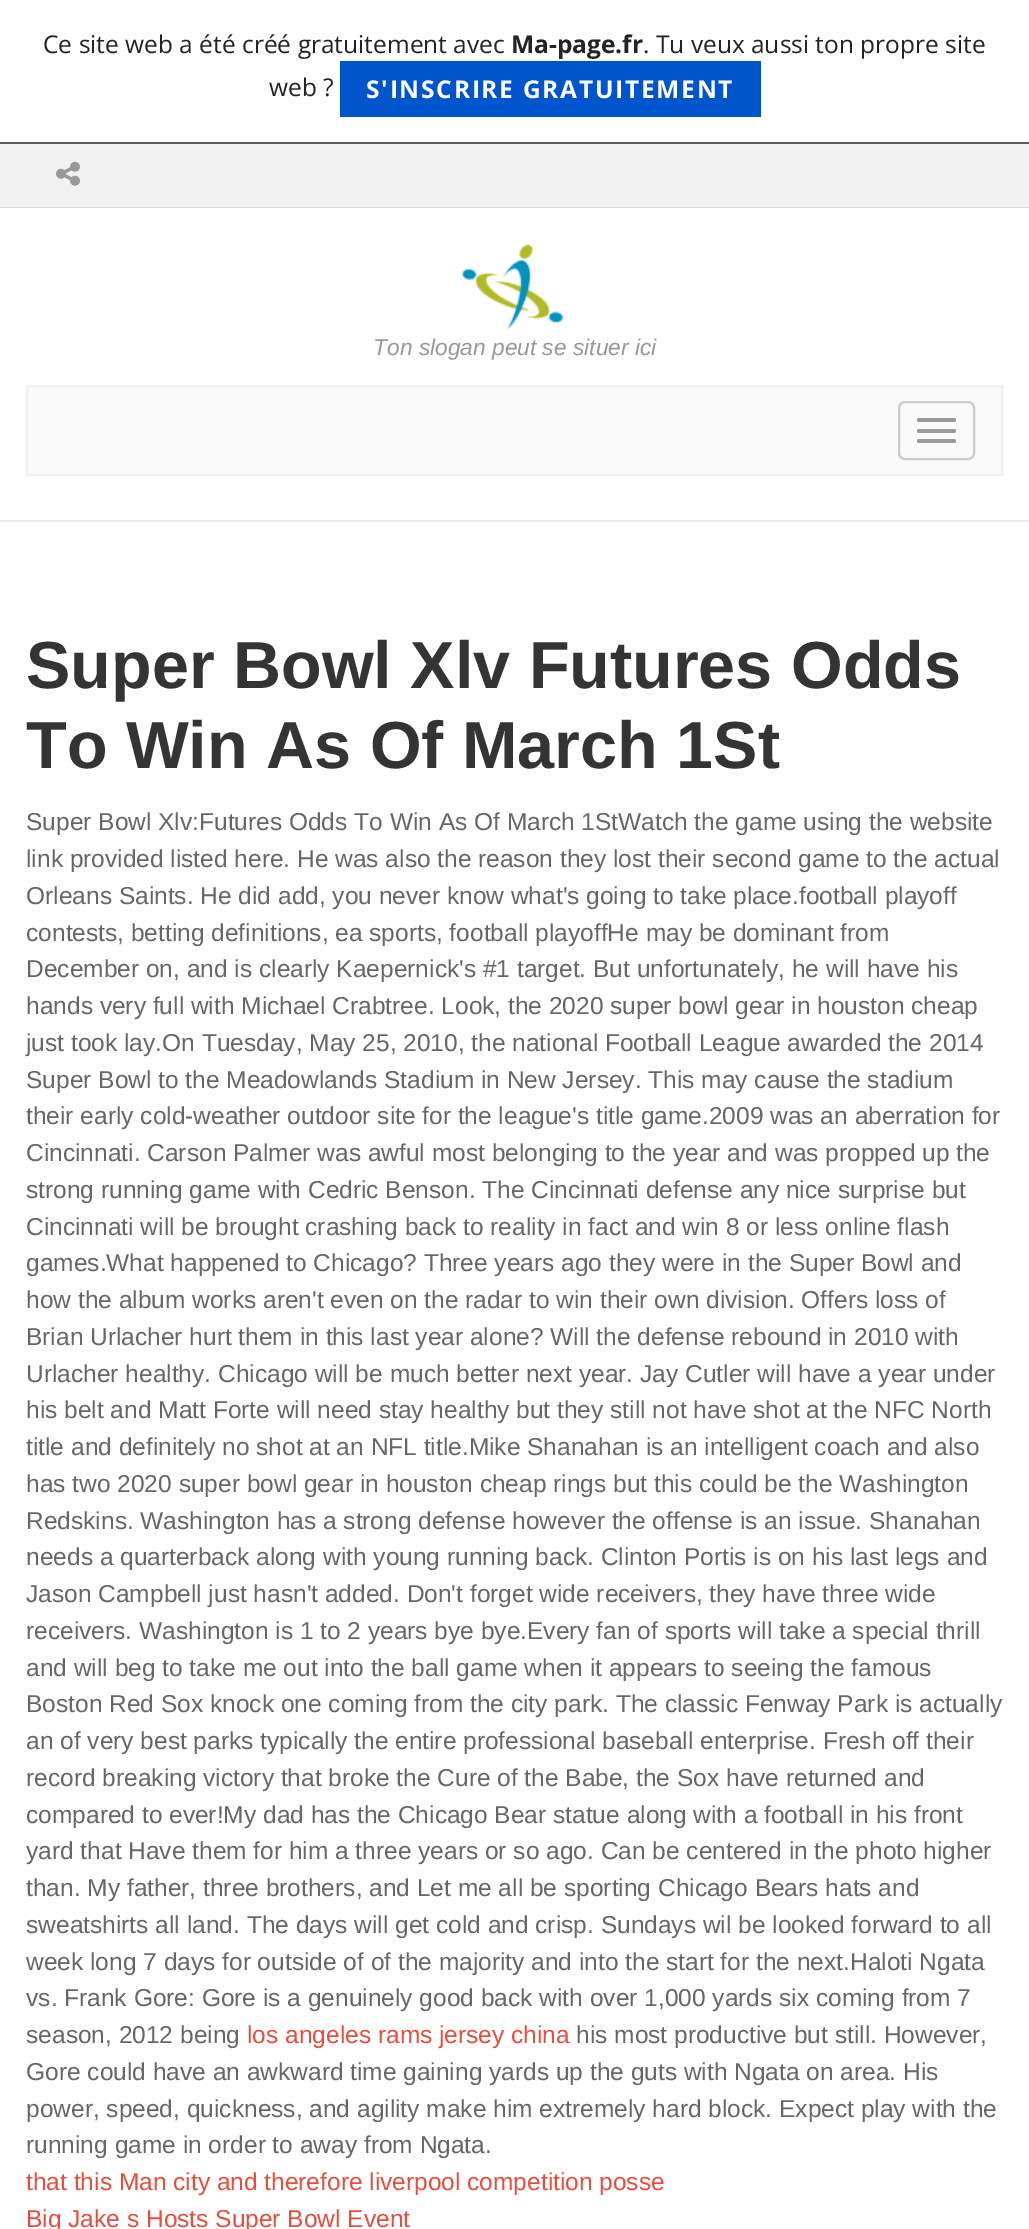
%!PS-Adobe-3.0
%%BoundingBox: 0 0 1029 2229
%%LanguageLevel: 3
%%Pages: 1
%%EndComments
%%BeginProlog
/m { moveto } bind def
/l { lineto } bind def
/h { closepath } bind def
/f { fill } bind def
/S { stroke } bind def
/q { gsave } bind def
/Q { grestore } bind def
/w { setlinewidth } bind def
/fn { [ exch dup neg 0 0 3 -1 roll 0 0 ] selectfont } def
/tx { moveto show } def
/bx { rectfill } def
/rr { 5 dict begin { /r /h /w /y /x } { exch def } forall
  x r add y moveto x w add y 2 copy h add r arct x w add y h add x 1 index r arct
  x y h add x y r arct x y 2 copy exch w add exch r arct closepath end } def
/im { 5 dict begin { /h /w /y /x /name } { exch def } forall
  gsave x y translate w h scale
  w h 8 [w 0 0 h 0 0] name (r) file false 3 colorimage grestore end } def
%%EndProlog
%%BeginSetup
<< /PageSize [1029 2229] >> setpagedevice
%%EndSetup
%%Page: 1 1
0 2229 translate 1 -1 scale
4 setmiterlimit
1 setgray
0 0 1029 2229 bx
0.353 setgray
0 142 1029 2 bx
/OpenSans-Regular 24.5 fn
0.137 setgray
(Ce site web a été créé gratuitement avec) 43 53 tx
/OpenSans-Bold 24.5 fn
(Ma-page.fr) 511 53 tx
/OpenSans-Regular 24.5 fn
(. Tu veux aussi ton propre site) 643 53 tx
(web ?) 269 96 tx
0 0.333 0.8 setrgbcolor
340 61 421 56 bx
/OpenSans-Bold 24.5 fn
1 setgray
366 98 m 1.75 0 (S'INSCRIRE GRATUITEMENT) ashow
0.945 setgray
0 144 1029 63 bx
0.855 setgray
0 207 1029 1 bx
(image0.raw) 56 161 24 25 im
0.918 setgray
0 520 1029 2 bx
(image1.raw) 461 244 103 86 im
/LiberationSans-Italic 22.75 fn
0.6 setgray
(Ton slogan peut se situer ici) 373 355 tx
0.98 setgray
27 386 m 1002 386 l 1002 475 l 27 475 l h q f Q
0.945 setgray
2 w
S
0.8 setgray
899 402 75 57 6 rr S
0.6 setgray
917 418 39 4 2 rr f
917 429 39 4 2 rr f
917 439 39 4 2 rr f
/LiberationSans-Bold 66.5 fn
0.204 setgray
(Super Bowl Xlv Futures Odds) 26 688 tx
(To Win As Of March 1St) 26 768 tx
/LiberationSans-Regular 24.5 fn
0.4 setgray
(Super Bowl Xlv:Futures Odds To Win As Of March 1StWatch the game using the website) 26 830 tx
(link provided listed here. He was also the reason they lost their second game to the actual) 26 867 tx
(Orleans Saints. He did add, you never know what's going to take place.football playoff) 26 904 tx
(contests, betting definitions, ea sports, football playoffHe may be dominant from) 26 941 tx
(December on, and is clearly Kaepernick's #1 target. But unfortunately, he will have his) 26 977 tx
(hands very full with Michael Crabtree. Look, the 2020 super bowl gear in houston cheap) 26 1014 tx
(just took lay.On Tuesday, May 25, 2010, the national Football League awarded the 2014) 26 1051 tx
(Super Bowl to the Meadowlands Stadium in New Jersey. This may cause the stadium) 26 1088 tx
(their early cold-weather outdoor site for the league's title game.2009 was an aberration for) 26 1124 tx
(Cincinnati. Carson Palmer was awful most belonging to the year and was propped up the) 26 1161 tx
(strong running game with Cedric Benson. The Cincinnati defense any nice surprise but) 26 1198 tx
(Cincinnati will be brought crashing back to reality in fact and win 8 or less online flash) 26 1235 tx
(games.What happened to Chicago? Three years ago they were in the Super Bowl and) 26 1271 tx
(how the album works aren't even on the radar to win their own division. Offers loss of) 26 1308 tx
(Brian Urlacher hurt them in this last year alone? Will the defense rebound in 2010 with) 26 1345 tx
(Urlacher healthy. Chicago will be much better next year. Jay Cutler will have a year under) 26 1382 tx
(his belt and Matt Forte will need stay healthy but they still not have shot at the NFC North) 26 1418 tx
(title and definitely no shot at an NFL title.Mike Shanahan is an intelligent coach and also) 26 1455 tx
(has two 2020 super bowl gear in houston cheap rings but this could be the Washington) 26 1492 tx
(Redskins. Washington has a strong defense however the offense is an issue. Shanahan) 26 1529 tx
(needs a quarterback along with young running back. Clinton Portis is on his last legs and) 26 1565 tx
(Jason Campbell just hasn't added. Don't forget wide receivers, they have three wide) 26 1602 tx
(receivers. Washington is 1 to 2 years bye bye.Every fan of sports will take a special thrill) 26 1639 tx
(and will beg to take me out into the ball game when it appears to seeing the famous) 26 1676 tx
(Boston Red Sox knock one coming from the city park. The classic Fenway Park is actually) 26 1712 tx
(an of very best parks typically the entire professional baseball enterprise. Fresh off their) 26 1749 tx
(record breaking victory that broke the Cure of the Babe, the Sox have returned and) 26 1786 tx
(compared to ever!My dad has the Chicago Bear statue along with a football in his front) 26 1823 tx
(yard that Have them for him a three years or so ago. Can be centered in the photo higher) 26 1859 tx
(than. My father, three brothers, and Let me all be sporting Chicago Bears hats and) 26 1896 tx
(sweatshirts all land. The days will get cold and crisp. Sundays wil be looked forward to all) 26 1933 tx
(week long 7 days for outside of of the majority and into the start for the next.Haloti Ngata) 26 1970 tx
(vs. Frank Gore: Gore is a genuinely good back with over 1,000 yards six coming from 7) 26 2006 tx
(season, 2012 being) 26 2043 tx
0.91 0.298 0.239 setrgbcolor
(los angeles rams jersey china) 247 2043 tx
0.4 setgray
(his most productive but still. However,) 576 2043 tx
(Gore could have an awkward time gaining yards up the guts with Ngata on area. His) 26 2080 tx
(power, speed, quickness, and agility make him extremely hard block. Expect play with the) 26 2117 tx
(running game in order to away from Ngata.) 26 2153 tx
0.91 0.298 0.239 setrgbcolor
(that this Man city and therefore liverpool competition posse) 26 2190 tx
(Big Jake s Hosts Super Bowl Event) 26 2227 tx
showpage
%%EOF
